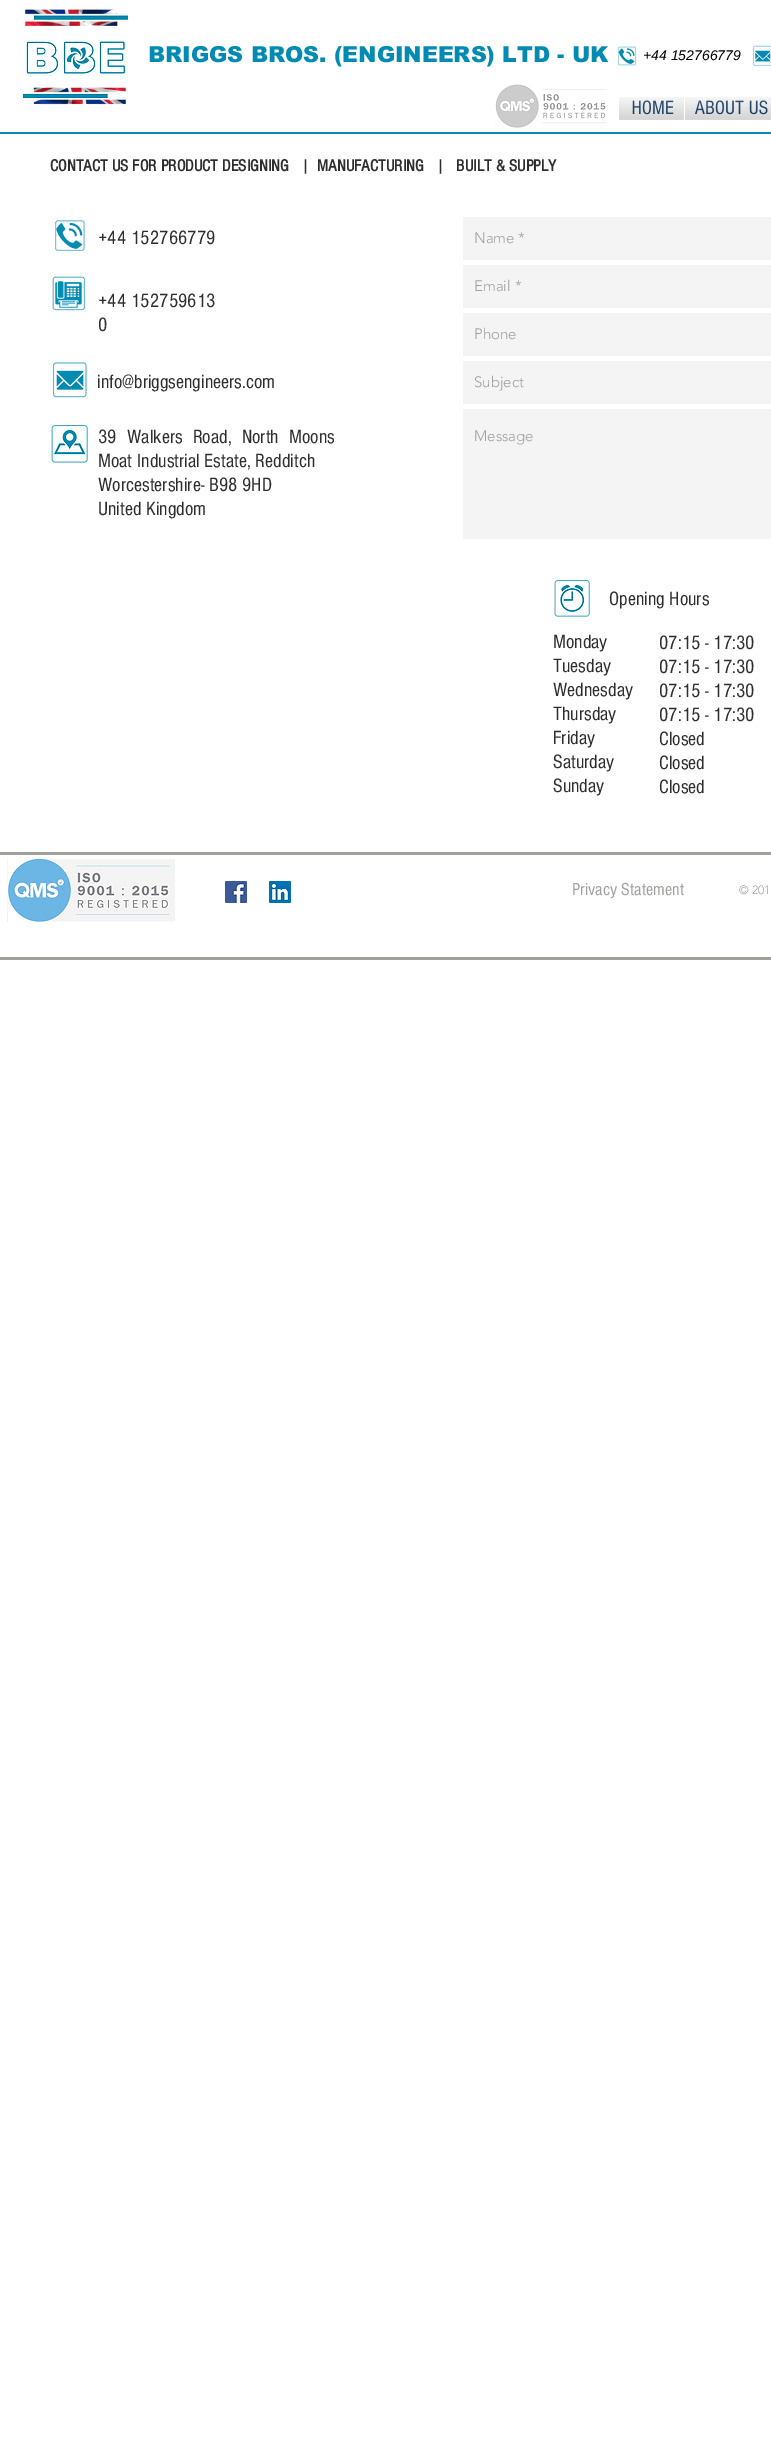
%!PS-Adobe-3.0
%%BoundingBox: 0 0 771 2464
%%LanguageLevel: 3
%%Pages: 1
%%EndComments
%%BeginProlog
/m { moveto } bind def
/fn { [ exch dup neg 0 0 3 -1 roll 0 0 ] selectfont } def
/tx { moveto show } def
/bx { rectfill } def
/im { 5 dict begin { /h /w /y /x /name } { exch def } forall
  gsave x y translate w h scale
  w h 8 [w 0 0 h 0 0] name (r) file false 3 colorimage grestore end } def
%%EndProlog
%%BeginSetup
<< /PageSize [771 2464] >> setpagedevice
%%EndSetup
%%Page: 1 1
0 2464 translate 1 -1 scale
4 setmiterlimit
1 setgray
0 0 771 2464 bx
(image1.raw) 24 7 96 19 im
(image4.raw) 31 85 95 20 im
(image0.raw) 23 4 105 102 im
/arial-Black 22 fn
0.004 0.545 0.702 setrgbcolor
(BRIGGS BROS. \(ENGINEERS\) LTD - UK) 148 62 tx
(image2.raw) 617 46 20 20 im
/LiberationSans-Italic 14 fn
0 setgray
(+44 152766779) 643 60 tx
(image3.raw) 753 45 18 21 im
(image5.raw) 495 84 111 44 im
(image6.raw) 619 97 3 23 im
/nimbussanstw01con-Regular 20 fn
0 0.18 0.365 setrgbcolor
(HOME) 632 114 tx
(image7.raw) 632 100 42 15 im
(image8.raw) 622 97 62 23 im
(ABOUT US) 695 114 tx
(image9.raw) 695 100 73 15 im
(image10.raw) 685 97 86 23 im
0.004 0.545 0.702 setrgbcolor
0 132 771 2 bx
/nimbussanstw01con-Bold 17 fn
0.184 0.18 0.18 setrgbcolor
(CONTACT US FOR PRODUCT DESIGNING   |  MANUFACTURING   |   BUILT & SUPPLY) 50 171 tx
(image11.raw) 55 220 30 31 im
/nimbussanstw01con-Regular 20 fn
(+44 152766779) 98 244 tx
0.957 setgray
463 217 308 43 bx
/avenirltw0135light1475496-Light 15 fn
0.627 0.627 0.624 setrgbcolor
(Name *) 474 243 tx
0.957 setgray
463 265 308 43 bx
0.627 0.627 0.624 setrgbcolor
(Email *) 474 291 tx
0.957 setgray
463 313 308 43 bx
0.627 0.627 0.624 setrgbcolor
(Phone) 474 339 tx
0.957 setgray
463 361 308 43 bx
0.627 0.627 0.624 setrgbcolor
(Subject) 474 387 tx
0.957 setgray
463 409 308 130 bx
0.627 0.627 0.624 setrgbcolor
(Message) 474 441 tx
(image12.raw) 52 276 33 35 im
/nimbussanstw01con-Regular 20 fn
0.184 0.18 0.18 setrgbcolor
(+44 152759613) 98 307 tx
(0) 98 331 tx
(image13.raw) 52 362 35 36 im
(info@briggsengineers.com) 97 388 tx
(image14.raw) 51 425 37 38 im
98 443 m 5.5 0 32 (39 Walkers Road, North Moons) widthshow
(Moat Industrial Estate, Redditch) 98 467 tx
(Worcestershire- B98 9HD) 98 491 tx
(United Kingdom) 98 515 tx
(image15.raw) 554 580 36 37 im
(Opening Hours) 609 605 tx
(Monday) 553 648 tx
(Tuesday) 553 672 tx
(Wednesday) 553 696 tx
(Thursday) 553 720 tx
(Friday) 553 744 tx
(Saturday) 553 768 tx
(Sunday) 553 792 tx
(07:15 - 17:30) 659 649 tx
(07:15 - 17:30) 659 673 tx
(07:15 - 17:30) 659 697 tx
(07:15 - 17:30) 659 721 tx
(Closed) 659 745 tx
(Closed) 659 769 tx
(Closed) 659 793 tx
0.627 0.627 0.624 setrgbcolor
0 852 771 3 bx
0 957 771 3 bx
(image16.raw) 7 858 168 64 im
(image17.raw) 225 881 22 22 im
(image18.raw) 269 881 22 22 im
/nimbussanstw01con-Regular 18 fn
(Privacy Statement) 572 895 tx
/avenirltw0135light1475496-Light 12 fn
(© 201) 739 894 tx
showpage
%%EOF
